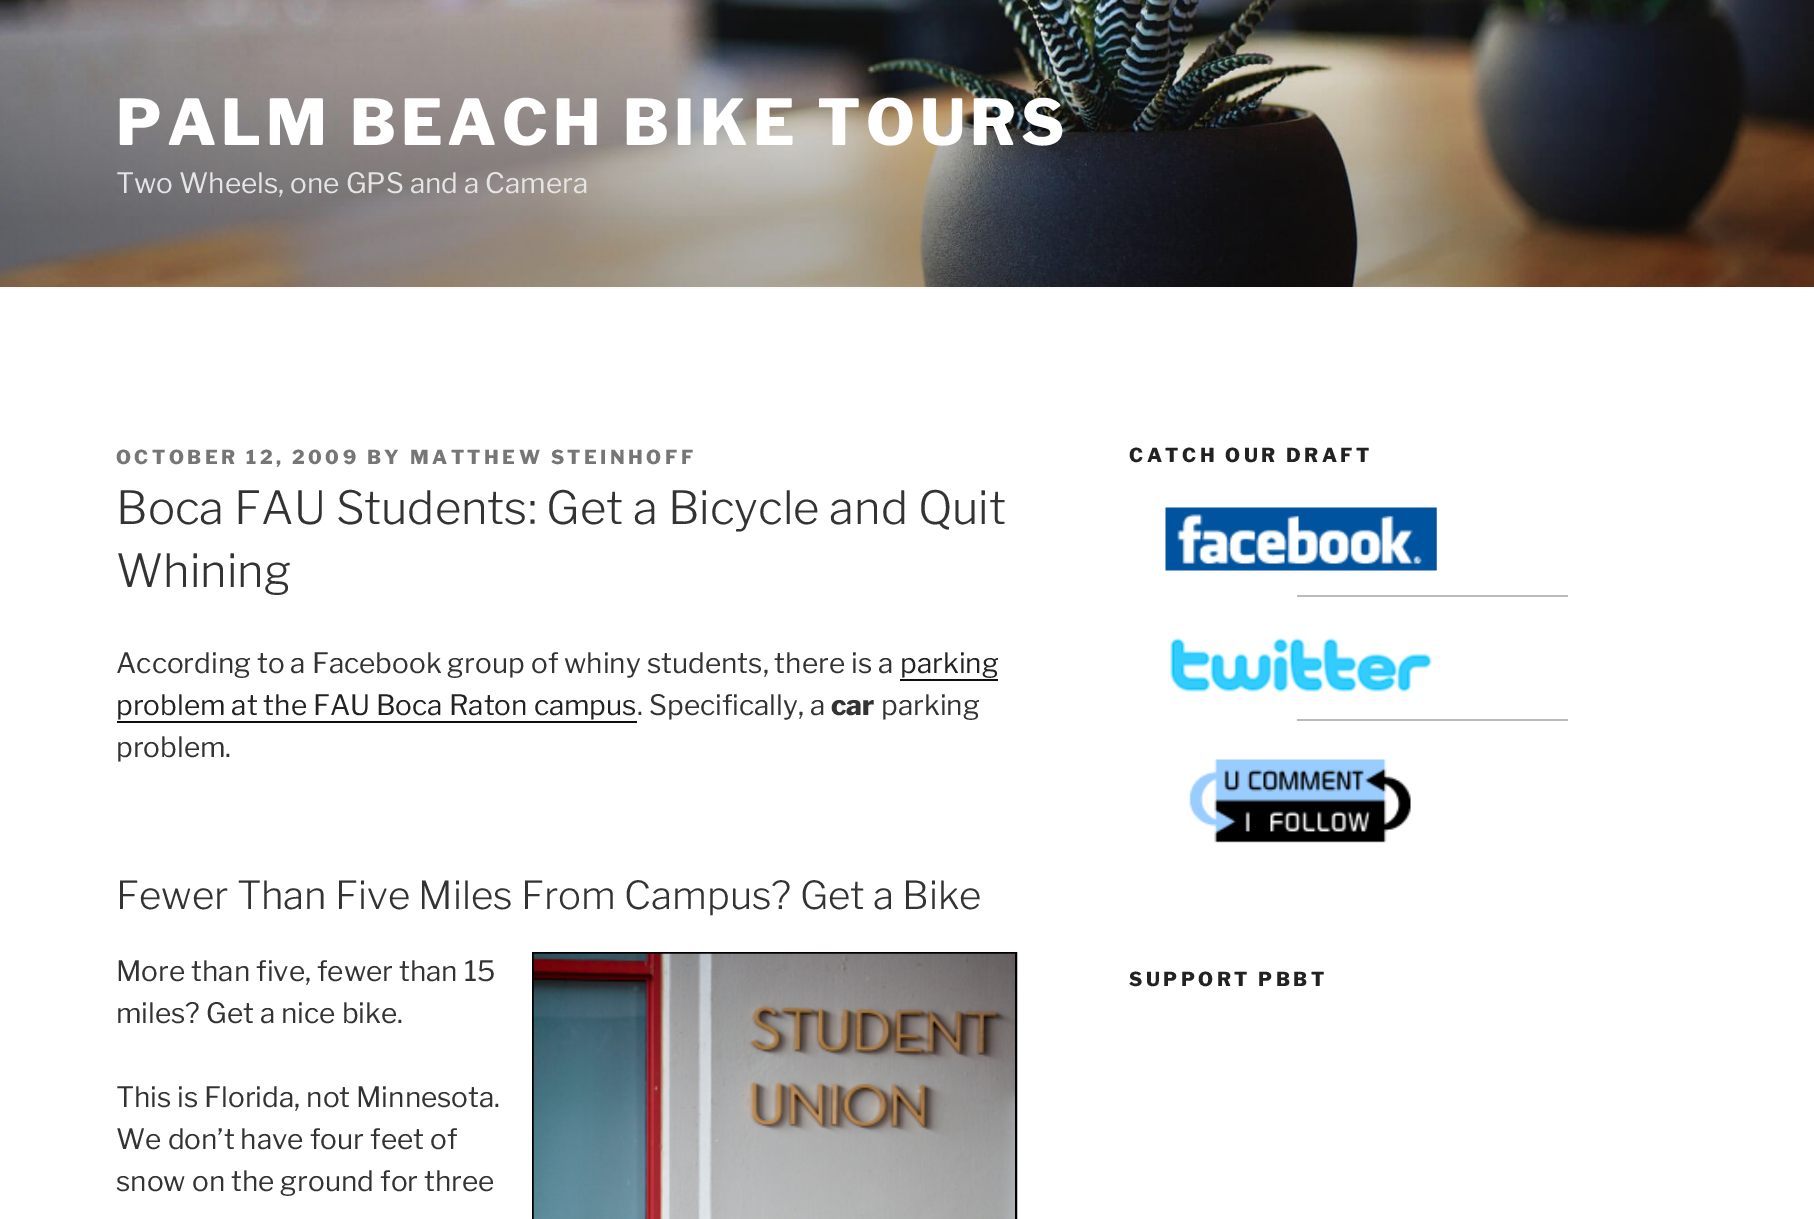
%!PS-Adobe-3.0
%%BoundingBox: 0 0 1814 1219
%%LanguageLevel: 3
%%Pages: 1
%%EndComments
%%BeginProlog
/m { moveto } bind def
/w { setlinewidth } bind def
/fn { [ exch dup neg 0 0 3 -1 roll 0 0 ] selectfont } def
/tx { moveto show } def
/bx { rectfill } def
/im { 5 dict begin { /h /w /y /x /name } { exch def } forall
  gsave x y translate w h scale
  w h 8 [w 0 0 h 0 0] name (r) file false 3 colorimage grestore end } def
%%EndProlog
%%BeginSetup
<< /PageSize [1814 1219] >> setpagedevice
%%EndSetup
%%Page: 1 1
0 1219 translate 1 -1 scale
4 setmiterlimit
1 setgray
0 0 1814 1219 bx
0.98 setgray
0 287 1814 2 bx
(image0.raw) 0 0 1814 287 im
/LibreFranklin-Thin 63 fn
1 setgray
116 145 m 5 0 (PALM BEACH BIKE TOURS) ashow
/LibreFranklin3-Thin 28 fn
0.902 0.898 0.898 setrgbcolor
(Two Wheels, one GPS and a Camera) 116 193 tx
/LibreFranklin-Thin 19.25 fn
0.463 setgray
116 464 m 3.5 0 (OCTOBER 12, 2009 BY MATTHEW STEINHOFF) ashow
/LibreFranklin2-Thin 45.5 fn
0.2 setgray
(Boca FAU Students: Get a Bicycle and Quit) 116 524 tx
(Whining) 116 587 tx
/LibreFranklin3-Thin 28 fn
(According to a Facebook group of whiny students, there is a) 116 673 tx
0.133 setgray
(parking) 900 673 tx
0.059 setgray
900 679 98 2 bx
0.133 setgray
(problem at the FAU Boca Raton campus) 116 715 tx
0.059 setgray
117 721 520 2 bx
0.2 setgray
(. Specifically, a) 637 715 tx
/LibreFranklin-Thin 28 fn
(car) 831 715 tx
/LibreFranklin3-Thin 28 fn
(parking) 881 715 tx
(problem.) 116 757 tx
/LibreFranklin2-Thin 38.5 fn
(Fewer Than Five Miles From Campus? Get a Bike) 116 909 tx
/LibreFranklin3-Thin 28 fn
(More than five, fewer than 15) 116 981 tx
0 setgray
2 w
533 953 483 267 rectstroke
(image1.raw) 533 953 482 266 im
0.2 setgray
(miles? Get a nice bike.) 116 1023 tx
(This is Florida, not Minnesota.) 116 1107 tx
(We don’t have four feet of) 116 1149 tx
(snow on the ground for three) 116 1191 tx
/LibreFranklin-Thin 19.25 fn
0.133 setgray
1129 462 m 3.5 0 (CATCH OUR DRAFT) ashow
(image2.raw) 1165 507 272 64 im
0.733 setgray
1297 595 271 2 bx
(image3.raw) 1170 638 262 54 im
1297 719 271 2 bx
(image4.raw) 1189 759 222 84 im
0.133 setgray
1129 986 m 3.5 0 (SUPPORT PBBT) ashow
showpage
%%EOF
